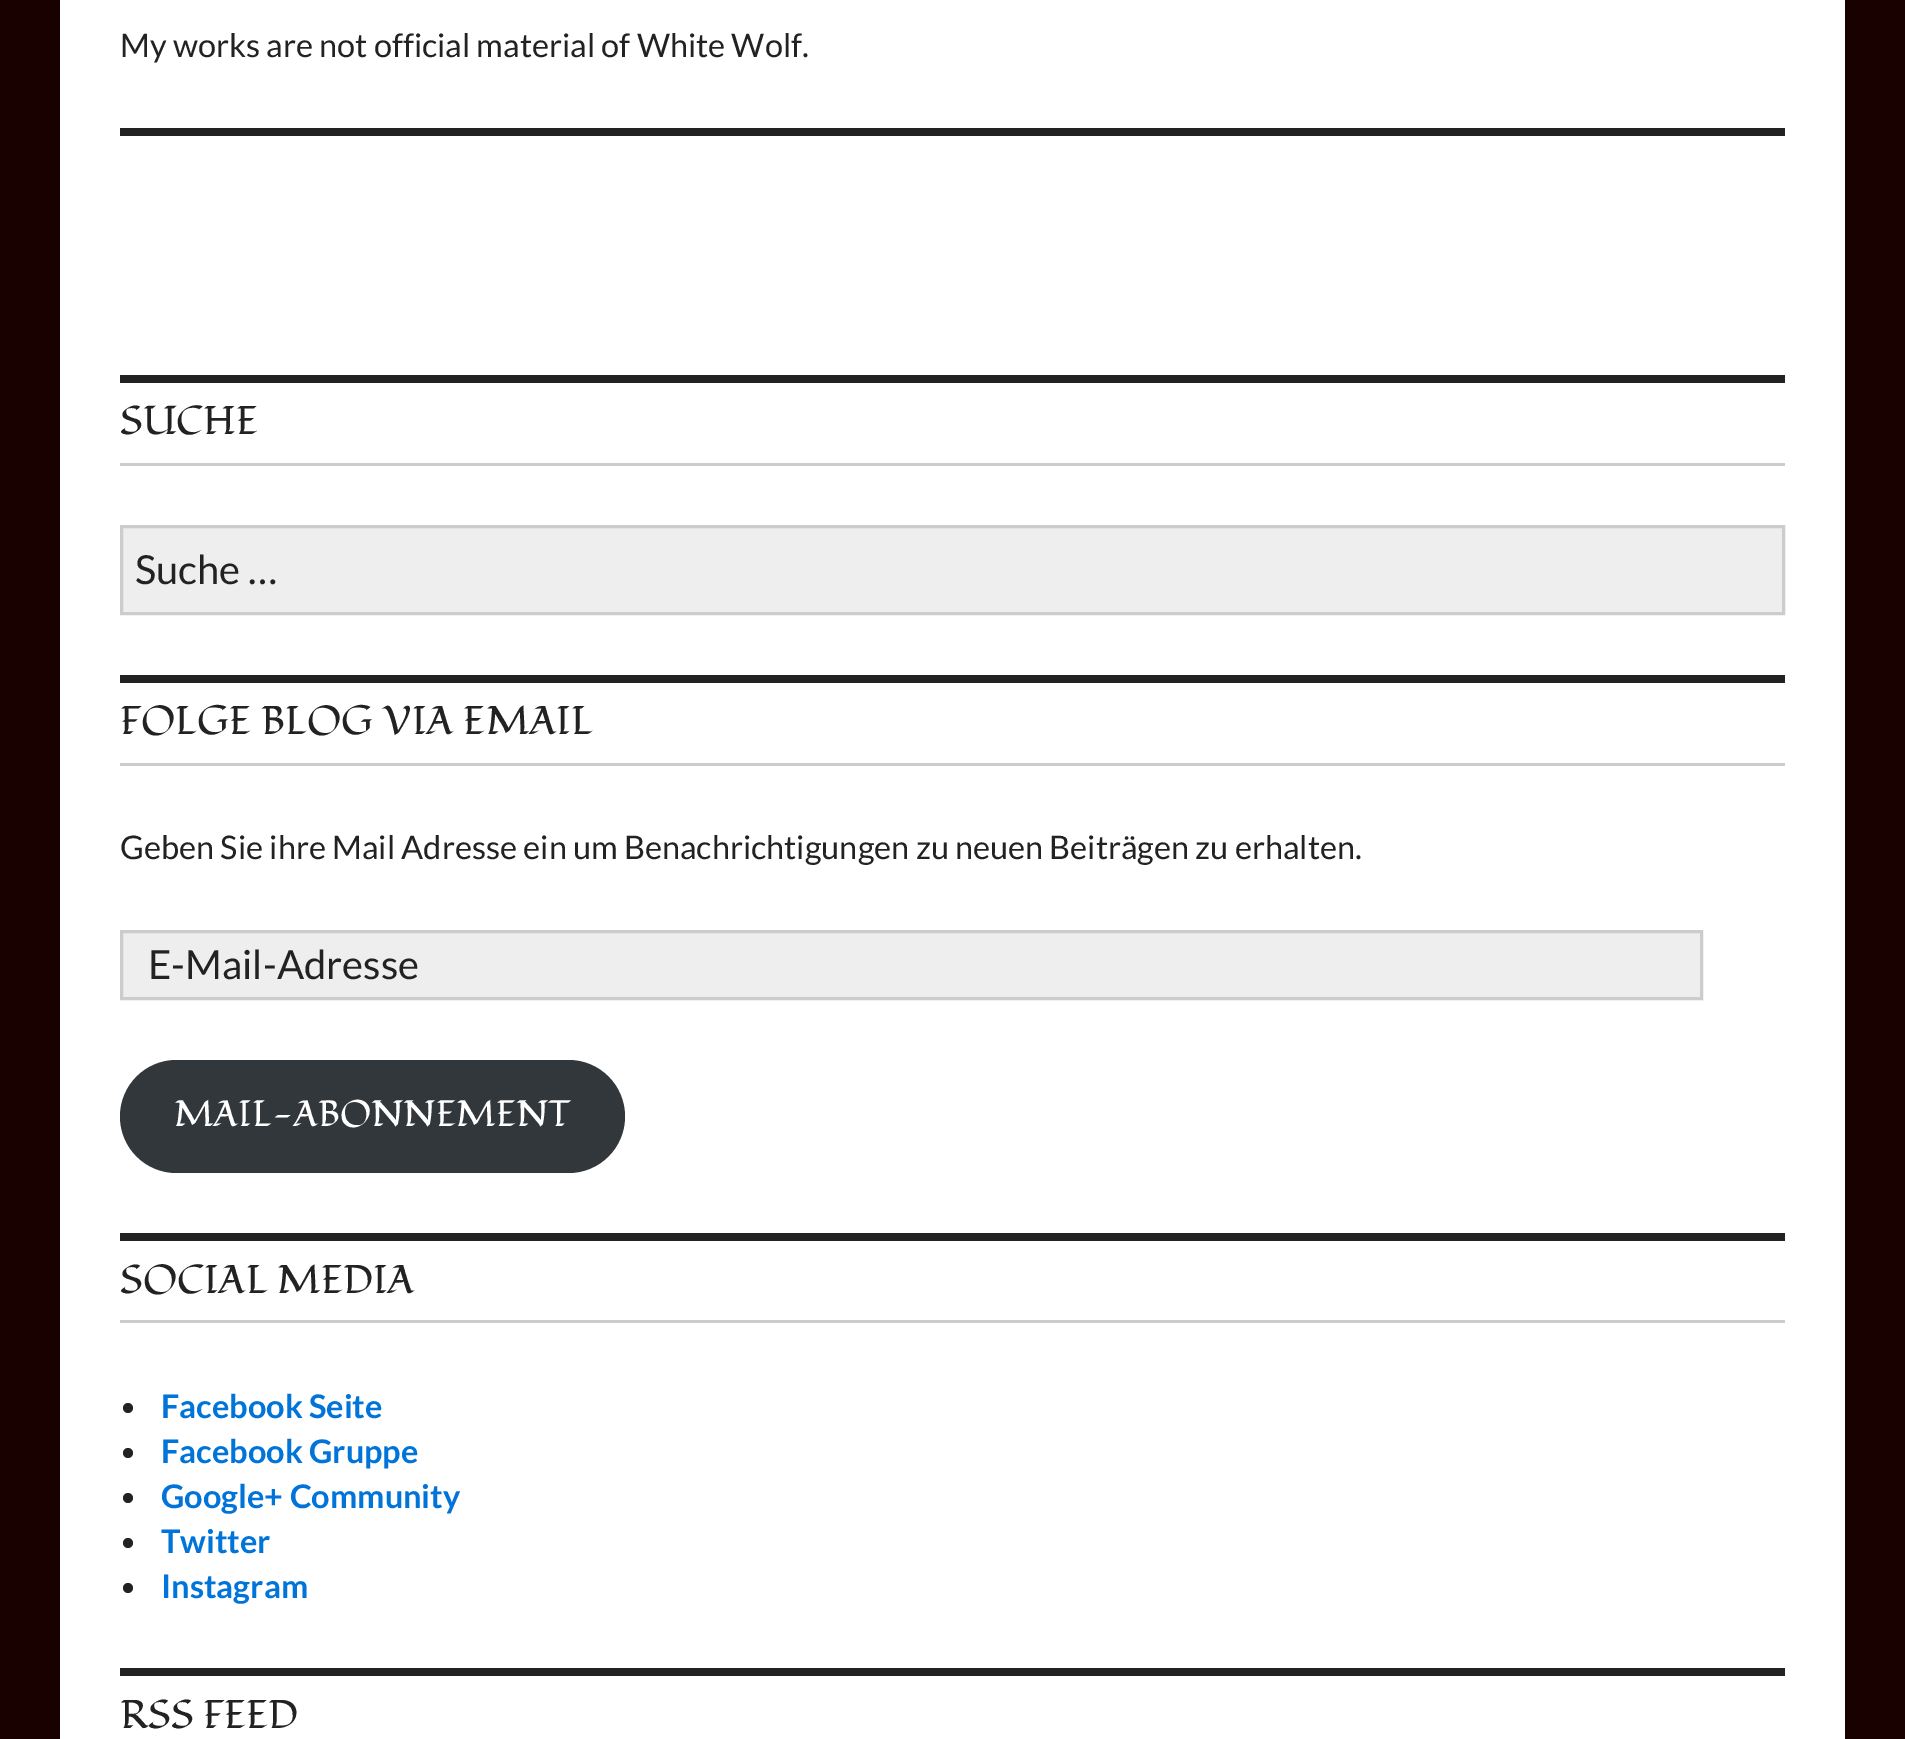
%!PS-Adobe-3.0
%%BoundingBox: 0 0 1905 1739
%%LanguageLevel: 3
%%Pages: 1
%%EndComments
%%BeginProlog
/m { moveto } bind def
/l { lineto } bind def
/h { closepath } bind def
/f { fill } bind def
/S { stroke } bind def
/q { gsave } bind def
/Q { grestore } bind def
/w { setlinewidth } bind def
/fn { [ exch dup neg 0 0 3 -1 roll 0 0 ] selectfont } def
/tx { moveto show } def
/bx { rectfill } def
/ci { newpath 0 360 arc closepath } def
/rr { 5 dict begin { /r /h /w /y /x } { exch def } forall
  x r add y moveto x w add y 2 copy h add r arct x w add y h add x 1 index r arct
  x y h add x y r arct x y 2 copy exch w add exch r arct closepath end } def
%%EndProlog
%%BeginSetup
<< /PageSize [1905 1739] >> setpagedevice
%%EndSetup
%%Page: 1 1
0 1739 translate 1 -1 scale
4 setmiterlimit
0.098 0.004 0 setrgbcolor
0 0 1905 1739 bx
1 setgray
60 0 1785 1739 bx
/Lato-Regular 32.5 fn
0.133 setgray
(My works are not official material of White Wolf.) 120 57 tx
120 128 1665 8 bx
120 375 1665 8 bx
0.8 setgray
120 463 1665 3 bx
/Fondamento-Regular 40 fn
0.133 setgray
(SUCHE) 120 434 tx
0.933 setgray
121.5 526.5 m 1783.5 526.5 l 1783.5 613.5 l 121.5 613.5 l h q f Q
0.8 setgray
3 w
S
/Lato-Regular 40 fn
0.133 setgray
(Suche …) 135 584 tx
120 675 1665 8 bx
0.8 setgray
120 763 1665 3 bx
/Fondamento-Regular 40 fn
0.133 setgray
(FOLGE BLOG VIA EMAIL) 120 734 tx
/Lato-Regular 32.5 fn
(Geben Sie ihre Mail Adresse ein um Benachrichtigungen zu neuen Beiträgen zu erhalten.) 120 859 tx
0.933 setgray
121.5 931.5 m 1701.5 931.5 l 1701.5 998.5 l 121.5 998.5 l h q f Q
0.8 setgray
S
/Lato-Regular 40 fn
0.133 setgray
(E-Mail-Adresse) 148 979 tx
0.196 0.216 0.235 setrgbcolor
120 1060 505 113 56.5 rr f
/Fondamento-Regular 36.5 fn
1 setgray
(MAIL-ABONNEMENT) 174 1126 tx
0.133 setgray
120 1233 1665 8 bx
0.8 setgray
120 1320 1665 3 bx
/Fondamento-Regular 40 fn
0.133 setgray
(SOCIAL MEDIA) 120 1293 tx
128 1408 5 ci f
/Lato-Bold 32.5 fn
0 0.455 0.851 setrgbcolor
(Facebook Seite) 161 1418 tx
0.133 setgray
128 1453 5 ci f
0 0.455 0.851 setrgbcolor
(Facebook Gruppe) 161 1463 tx
0.133 setgray
128 1498 5 ci f
0 0.455 0.851 setrgbcolor
(Google+ Community) 161 1508 tx
0.133 setgray
128 1543 5 ci f
0 0.455 0.851 setrgbcolor
(Twitter) 161 1553 tx
0.133 setgray
128 1588 5 ci f
0 0.455 0.851 setrgbcolor
(Instagram) 161 1598 tx
0.133 setgray
120 1668 1665 8 bx
/Fondamento-Regular 40 fn
(RSS FEED) 120 1728 tx
showpage
%%EOF
